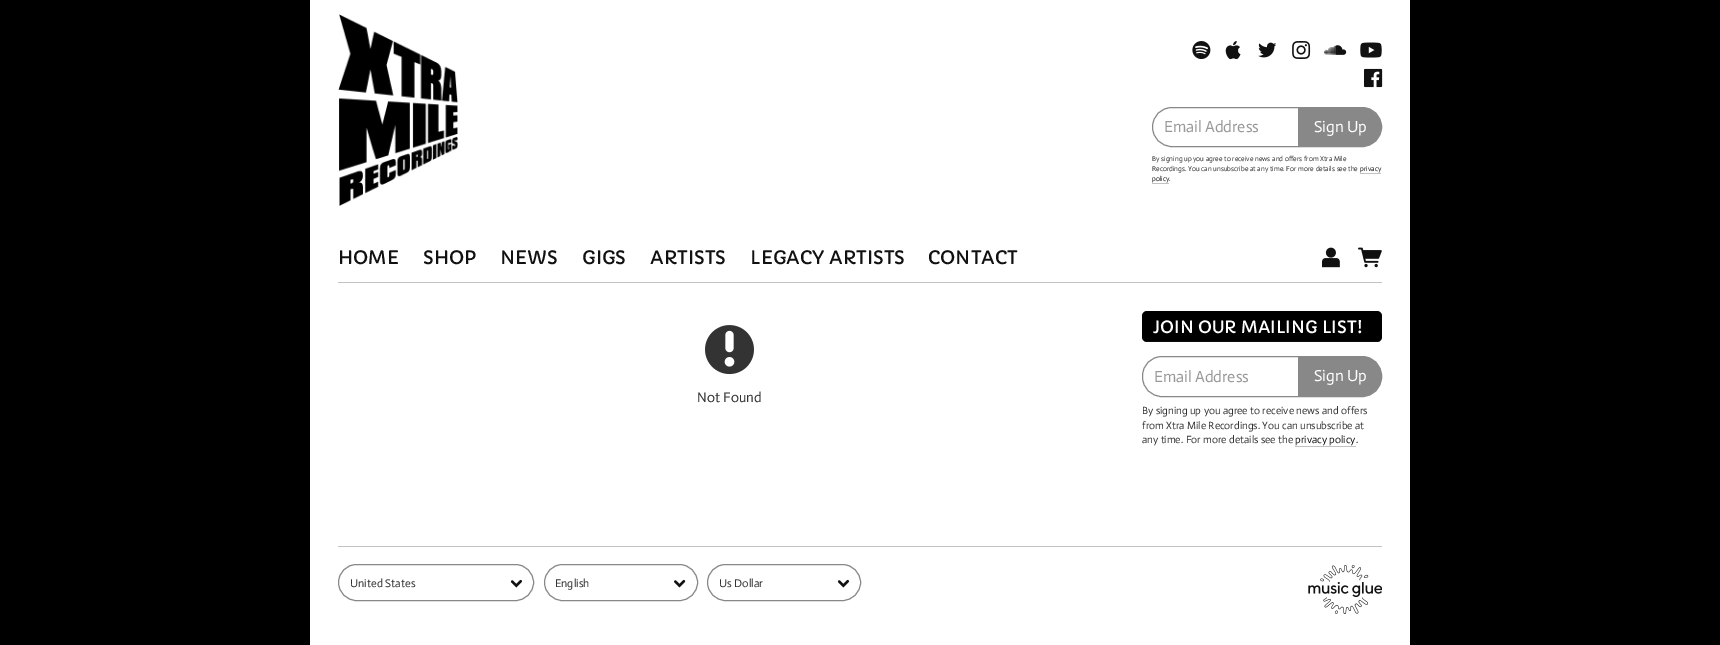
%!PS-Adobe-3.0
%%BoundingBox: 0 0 1720 645
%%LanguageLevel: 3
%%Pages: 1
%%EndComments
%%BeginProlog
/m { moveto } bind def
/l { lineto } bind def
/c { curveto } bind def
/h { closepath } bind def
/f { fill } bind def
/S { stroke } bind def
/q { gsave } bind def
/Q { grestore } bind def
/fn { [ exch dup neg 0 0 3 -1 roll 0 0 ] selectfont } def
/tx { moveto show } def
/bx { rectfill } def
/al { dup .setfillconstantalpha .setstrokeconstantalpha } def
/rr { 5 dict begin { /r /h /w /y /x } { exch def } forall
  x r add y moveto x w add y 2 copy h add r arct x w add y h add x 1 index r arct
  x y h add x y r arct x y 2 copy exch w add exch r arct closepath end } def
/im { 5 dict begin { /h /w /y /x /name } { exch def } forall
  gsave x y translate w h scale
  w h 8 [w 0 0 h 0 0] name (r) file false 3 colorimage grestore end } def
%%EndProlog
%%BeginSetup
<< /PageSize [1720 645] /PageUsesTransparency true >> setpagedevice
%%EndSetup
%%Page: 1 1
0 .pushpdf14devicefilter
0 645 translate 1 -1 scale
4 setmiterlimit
0 setgray
0 0 1720 645 bx
1 setgray
310 0 1100 645 bx
(image0.raw) 338 14 120 192 im
(image1.raw) 1192 41 19 18 im
(image2.raw) 1225 41 16 19 im
(image3.raw) 1258 42 19 16 im
(image4.raw) 1292 41 19 18 im
(image5.raw) 1324 45 23 10 im
(image6.raw) 1360 42 22 16 im
(image7.raw) 1364 68 19 20 im
0.533 setgray
1172 107.5 m 1298.5 107.5 l 1298.5 146.5 l 1172 146.5 l 1161 146.5 1152.5 138 1152.5 127 c 1152.5 116 1161 107.5 1172 107.5 c h S
/Actor-Regular 16 fn
0.6 setgray
(Email Address) 1164 132 tx
0.533 setgray
1299.5 107.5 m 1362 107.5 l 1373 107.5 1381.5 116 1381.5 127 c 1381.5 138 1373 146.5 1362 146.5 c 1299.5 146.5 l h q f Q
S
1 setgray
(Sign Up) 1314 132 tx
/Actor-Regular 7 fn
0.2 setgray
(By signing up you agree to receive news and offers from Xtra Mile) 1152 161 tx
(Recordings. You can unsubscribe at any time. For more details see the) 1152 171 tx
0.067 setgray
(privacy) 1360 171 tx
0.761 setgray
1360 173 21 1 bx
0.067 setgray
(policy) 1152 181 tx
0.761 setgray
1152 183 17 1 bx
0.2 setgray
(.) 1169 181 tx
0.761 setgray
338 282 1044 1 bx
/Capriola-Regular 18.25 fn
0.067 setgray
(HOME) 338 264 tx
(SHOP) 423 264 tx
(NEWS) 500 264 tx
(GIGS) 582 264 tx
(ARTISTS) 650 264 tx
(LEGACY ARTISTS) 750 264 tx
(CONTACT) 928 264 tx
(image8.raw) 1322 247 18 21 im
(image9.raw) 1358 247 24 21 im
(image10.raw) 705 325 49 50 im
/Actor-Regular 14 fn
0.2 setgray
(Not Found) 697 402 tx
0 setgray
1142 311 240 31 5 rr f
0.3 al
0.2 setgray
1145 341 235 1 bx
/Capriola-Regular 16.75 fn
1 al
1 setgray
(JOIN OUR MAILING LIST!) 1153 333 tx
0.533 setgray
1162 356.5 m 1298.5 356.5 l 1298.5 396.5 l 1162 396.5 l 1151 396.5 1142.5 388 1142.5 377 c 1142.5 376 l 1142.5 365 1151 356.5 1162 356.5 c h S
/Actor-Regular 16 fn
0.6 setgray
(Email Address) 1154 382 tx
0.533 setgray
1299.5 356.5 m 1362 356.5 l 1373 356.5 1381.5 365 1381.5 376 c 1381.5 377 l 1381.5 388 1373 396.5 1362 396.5 c 1299.5 396.5 l h q f Q
S
1 setgray
(Sign Up) 1314 381 tx
/Actor-Regular 10.5 fn
0.2 setgray
(By signing up you agree to receive news and offers) 1142 414 tx
(from Xtra Mile Recordings. You can unsubscribe at) 1142 429 tx
(any time. For more details see the) 1142 443 tx
0.067 setgray
(privacy policy) 1295 443 tx
0.761 setgray
1295 446 61 1 bx
0.2 setgray
(.) 1356 443 tx
0.761 setgray
338 546 1044 1 bx
0.533 setgray
338.5 564.5 195 36 18 rr S
/Actor-Regular 11.25 fn
0.2 setgray
(United States) 350 587 tx
(image11.raw) 510 579 12 9 im
0.533 setgray
544.5 564.5 153 36 18 rr S
0.2 setgray
(English) 555 587 tx
(image12.raw) 674 579 12 9 im
0.533 setgray
707.5 564.5 153 36 18 rr S
0.2 setgray
(Us Dollar) 719 587 tx
(image13.raw) 837 579 12 9 im
(image14.raw) 1308 565 74 49 im
.poppdf14devicefilter showpage
%%EOF
